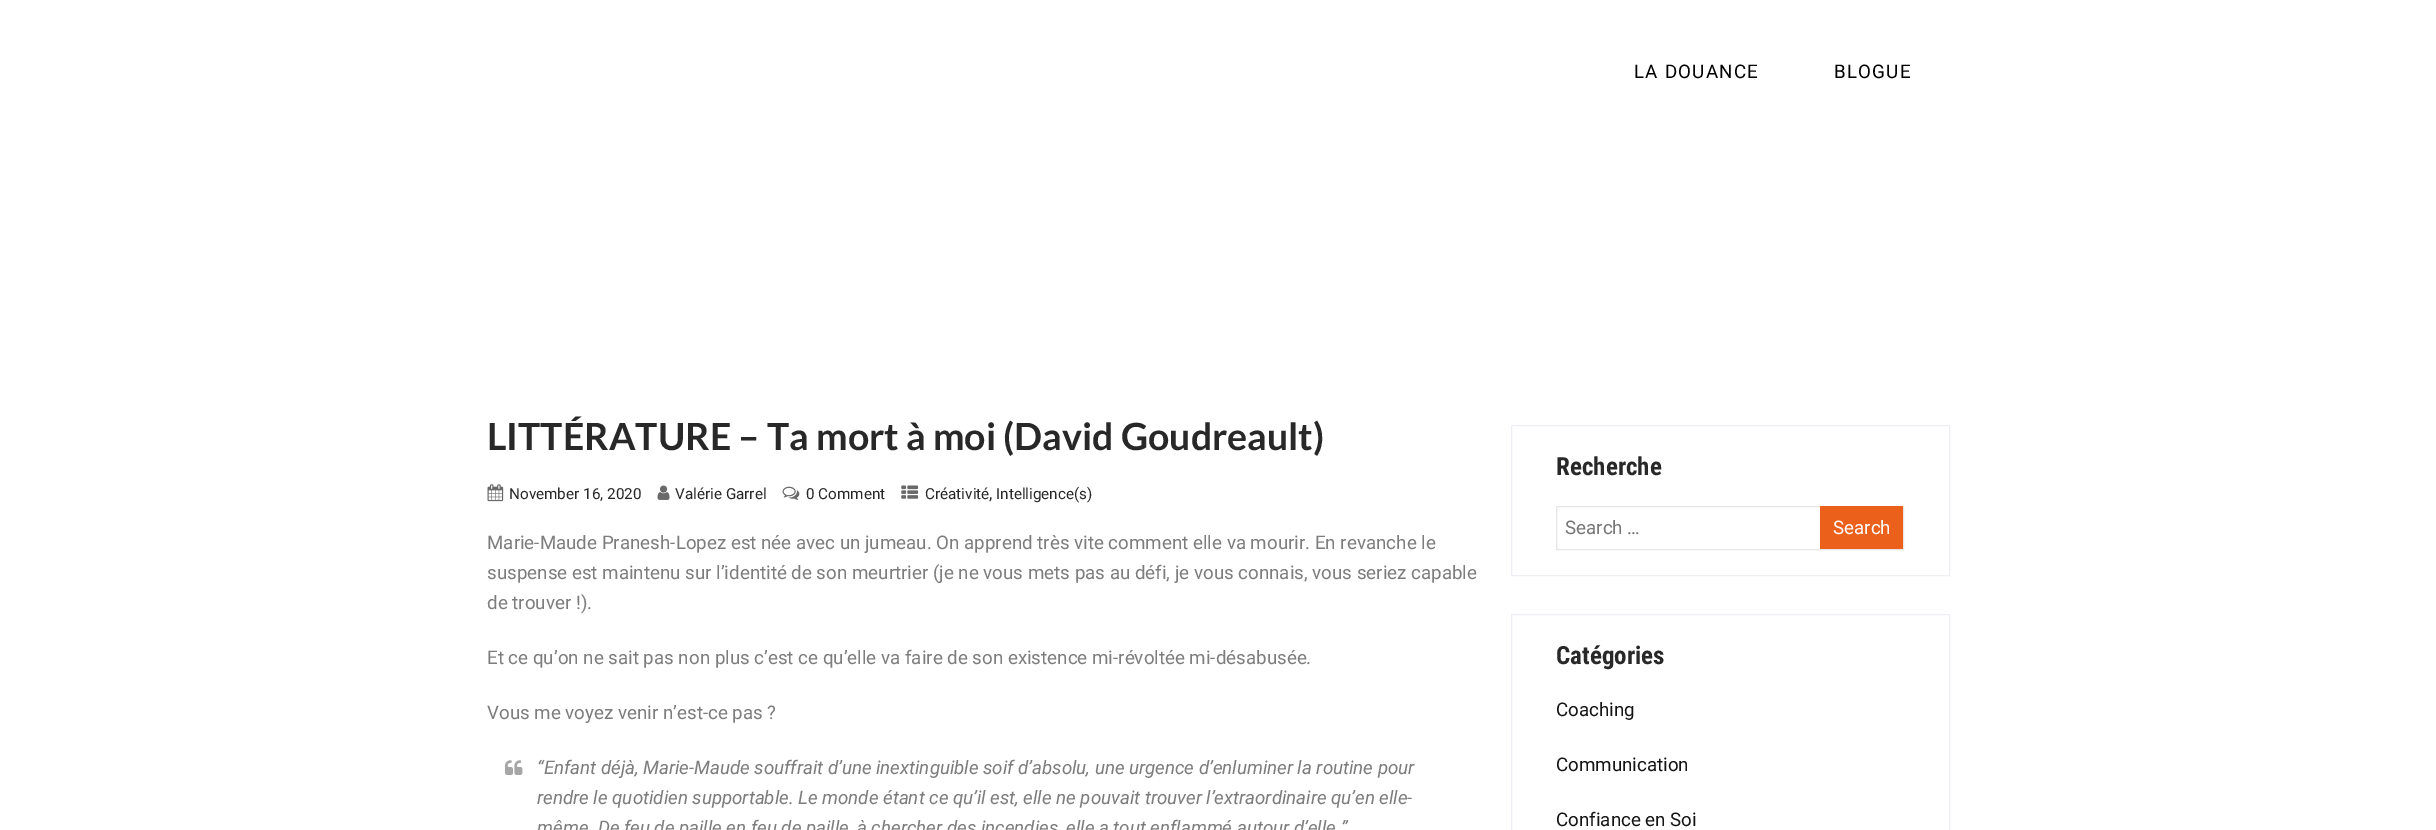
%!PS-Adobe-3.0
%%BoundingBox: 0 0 2436 830
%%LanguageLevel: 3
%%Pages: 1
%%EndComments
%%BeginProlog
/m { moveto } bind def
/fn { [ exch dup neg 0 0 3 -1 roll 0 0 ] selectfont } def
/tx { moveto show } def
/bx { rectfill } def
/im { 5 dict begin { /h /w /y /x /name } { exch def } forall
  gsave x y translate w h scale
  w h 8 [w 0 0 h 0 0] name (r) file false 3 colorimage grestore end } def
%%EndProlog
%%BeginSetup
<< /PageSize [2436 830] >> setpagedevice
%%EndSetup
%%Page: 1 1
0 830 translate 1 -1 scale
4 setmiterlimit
1 setgray
0 0 2436 830 bx
/Roboto-Regular 18.75 fn
0 setgray
1634 78 m 1.25 0 (LA DOUANCE) ashow
1834 78 m 1.25 0 (BLOGUE) ashow
/Lato-Bold 37.5 fn
0.157 setgray
(LITTÉRATURE – Ta mort à moi \(David Goudreault\)) 487 450 tx
(image0.raw) 487 484 17 18 im
/Roboto-Regular 15.25 fn
(November 16, 2020) 509 499 tx
(image1.raw) 657 485 13 15 im
(Valérie Garrel) 675 499 tx
(image2.raw) 782 486 18 14 im
(0 Comment) 806 499 tx
(image3.raw) 901 485 18 14 im
(Créativité) 925 499 tx
/Roboto-Regular 17 fn
(,) 989 499 tx
/Roboto-Regular 15.25 fn
(Intelligence\(s\)) 996 499 tx
/Roboto-Regular 18.75 fn
0.49 setgray
(Marie-Maude Pranesh-Lopez est née avec un jumeau. On apprend très vite comment elle va mourir. En revanche le) 487 549 tx
(suspense est maintenu sur l’identité de son meurtrier \(je ne vous mets pas au défi, je vous connais, vous seriez capable) 487 579 tx
(de trouver !\).) 487 609 tx
(Et ce qu’on ne sait pas non plus c’est ce qu’elle va faire de son existence mi-révoltée mi-désabusée.) 487 664 tx
(Vous me voyez venir n’est-ce pas ?) 487 719 tx
(image4.raw) 505 760 18 15 im
/Roboto-Italic 18.75 fn
(“Enfant déjà, Marie-Maude souffrait d’une inextinguible soif d’absolu, une urgence d’enluminer la routine pour) 537 774 tx
(rendre le quotidien supportable. Le monde étant ce qu’il est, elle ne pouvait trouver l’extraordinaire qu’en elle-) 537 804 tx
(même. De feu de paille en feu de paille, à chercher des incendies, elle a tout enflammé autour d’elle.”) 537 834 tx
0.933 0.937 0.961 setrgbcolor
1511.5 425.5 438 150 rectstroke
/RobotoCondensed-Bold 25 fn
0.157 setgray
(Recherche) 1556 475 tx
0.902 setgray
1556.5 506.5 347 43 rectstroke
/Roboto-Regular 18.75 fn
0.459 setgray
(Search …) 1565 534 tx
0.922 0.38 0.106 setrgbcolor
1820 506 83 43 bx
1 setgray
(Search) 1833 534 tx
0.933 0.937 0.961 setrgbcolor
1511.5 614.5 438 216 rectstroke
/RobotoCondensed-Bold 25 fn
0.157 setgray
(Catégories) 1556 664 tx
/Roboto-Regular 18.75 fn
0.078 setgray
(Coaching) 1556 716 tx
(Communication) 1556 771 tx
(Confiance en Soi) 1556 826 tx
showpage
%%EOF
